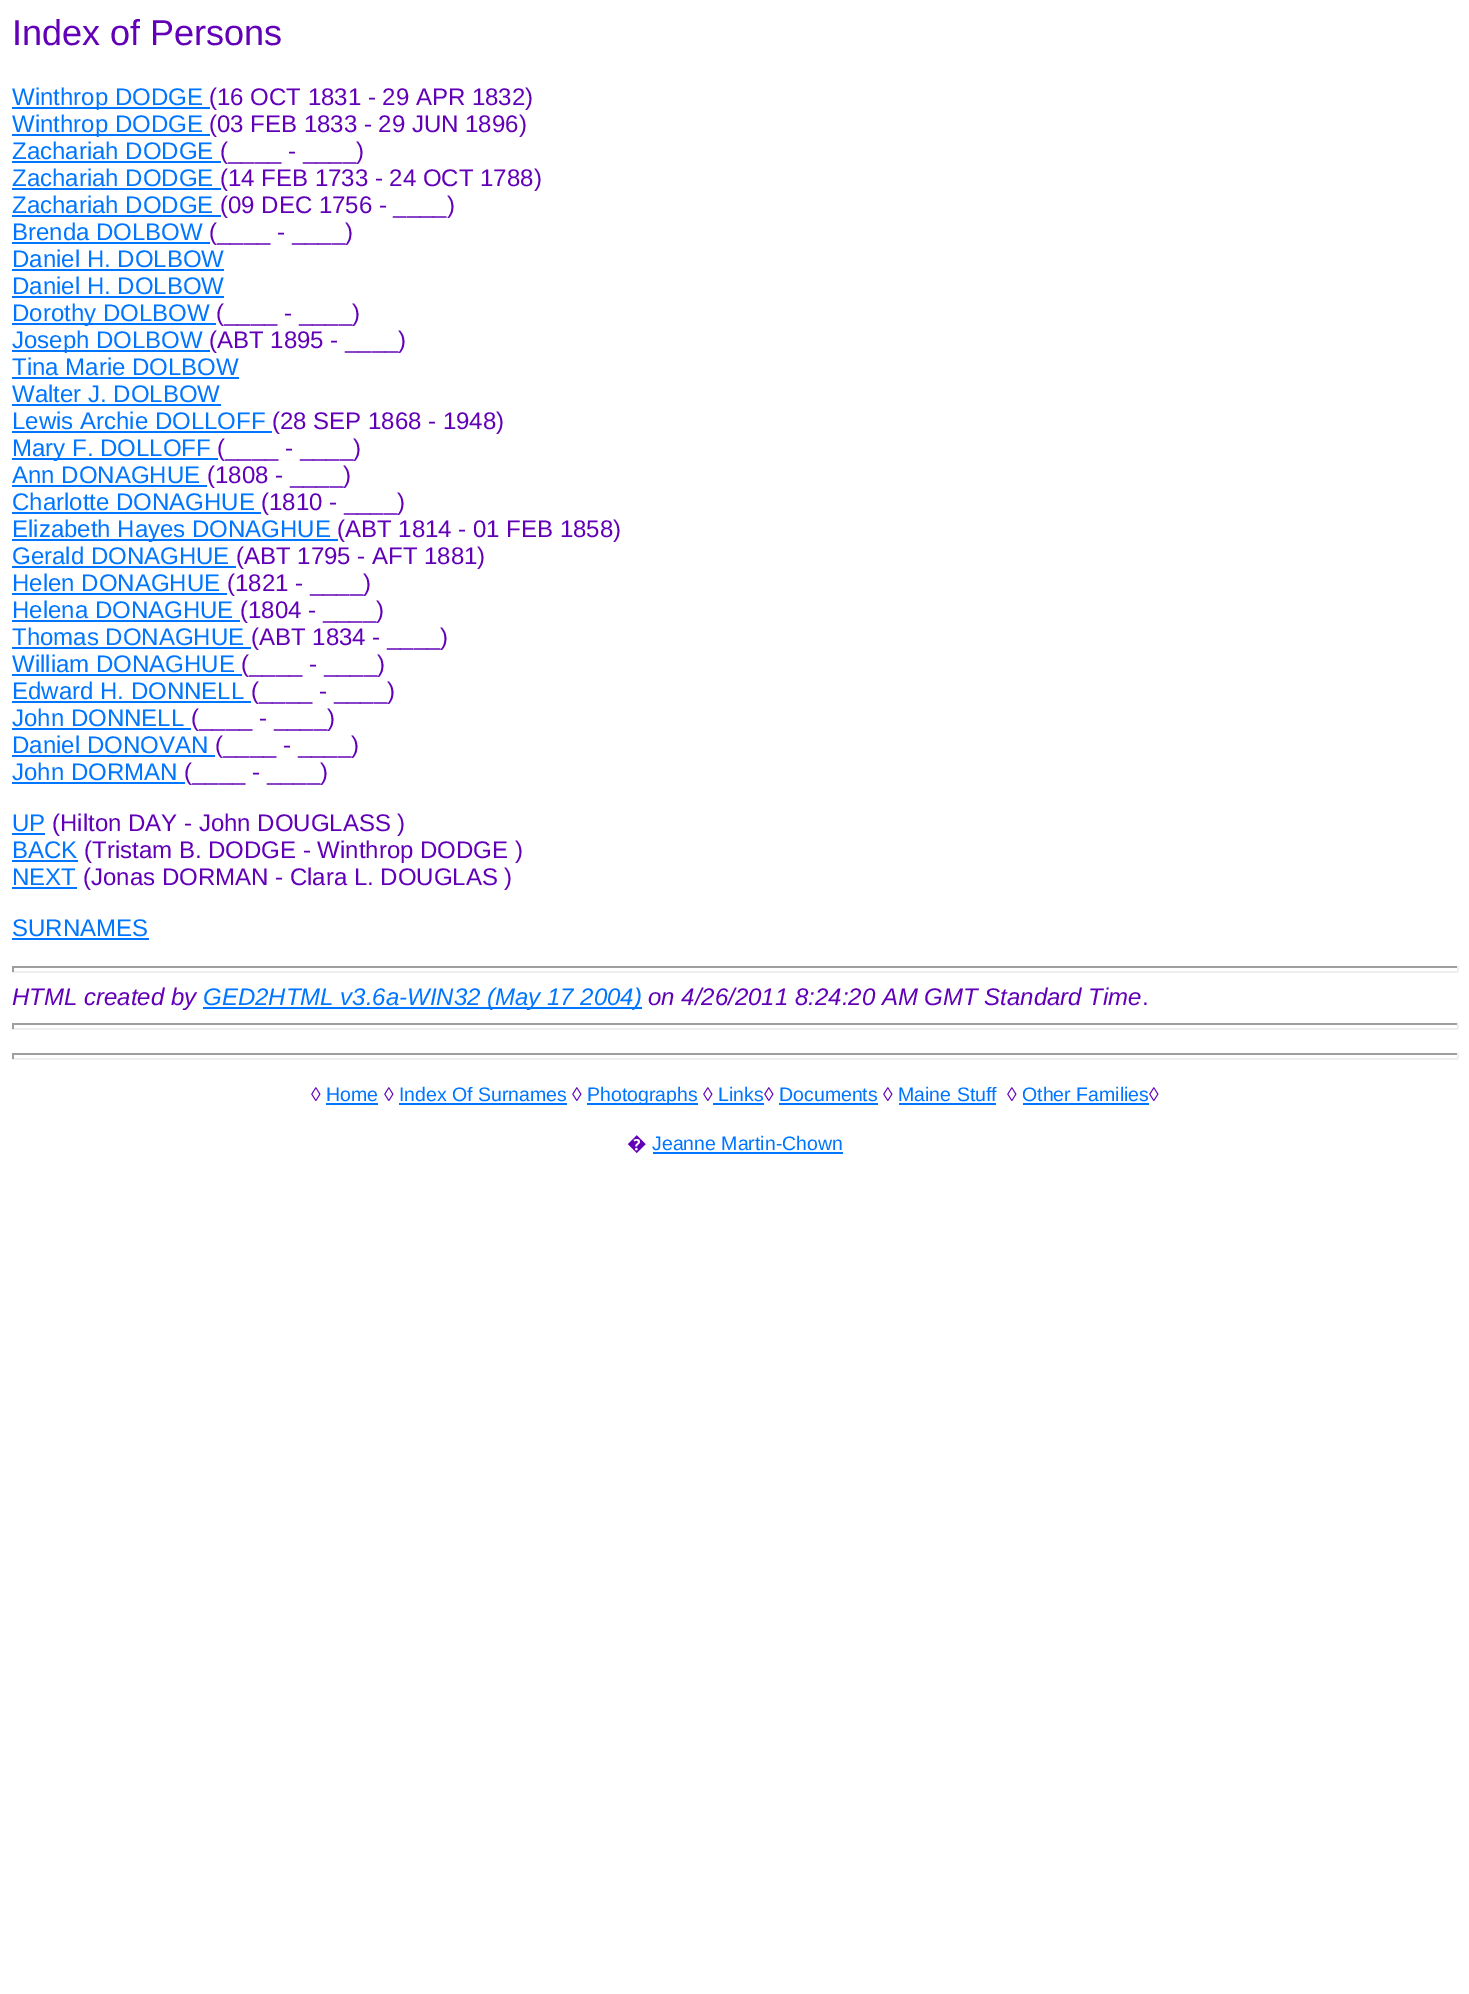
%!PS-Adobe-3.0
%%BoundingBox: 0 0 1469 1994
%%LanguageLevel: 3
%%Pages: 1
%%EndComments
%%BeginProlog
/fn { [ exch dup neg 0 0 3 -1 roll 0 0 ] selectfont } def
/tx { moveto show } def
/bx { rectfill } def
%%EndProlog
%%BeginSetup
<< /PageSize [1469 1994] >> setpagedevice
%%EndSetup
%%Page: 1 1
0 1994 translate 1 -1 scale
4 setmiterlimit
1 setgray
0 0 1469 1994 bx
/LiberationSans-Regular 36 fn
0.384 0 0.722 setrgbcolor
(Index of Persons) 12 45 tx
0 0.459 1 setrgbcolor
12 107 198 2 bx
/LiberationSans-Regular 24 fn
(Winthrop DODGE) 12 105 tx
0.384 0 0.722 setrgbcolor
(\(16 OCT 1831 - 29 APR 1832\)) 209 105 tx
0 0.459 1 setrgbcolor
12 134 198 2 bx
(Winthrop DODGE) 12 132 tx
0.384 0 0.722 setrgbcolor
(\(03 FEB 1833 - 29 JUN 1896\)) 209 132 tx
0 0.459 1 setrgbcolor
(Zachariah DODGE) 12 159 tx
12 161 209 2 bx
0.384 0 0.722 setrgbcolor
(\(____ - ____\)) 220 159 tx
0 0.459 1 setrgbcolor
(Zachariah DODGE) 12 186 tx
12 188 209 2 bx
0.384 0 0.722 setrgbcolor
(\(14 FEB 1733 - 24 OCT 1788\)) 220 186 tx
0 0.459 1 setrgbcolor
(Zachariah DODGE) 12 213 tx
12 215 209 2 bx
0.384 0 0.722 setrgbcolor
(\(09 DEC 1756 - ____\)) 220 213 tx
0 0.459 1 setrgbcolor
(Brenda DOLBOW) 12 240 tx
12 242 198 2 bx
0.384 0 0.722 setrgbcolor
(\(____ - ____\)) 209 240 tx
0 0.459 1 setrgbcolor
(Daniel H. DOLBOW) 12 267 tx
12 269 212 2 bx
(Daniel H. DOLBOW) 12 294 tx
12 296 212 2 bx
12 323 204 2 bx
(Dorothy DOLBOW) 12 321 tx
0.384 0 0.722 setrgbcolor
(\(____ - ____\)) 216 321 tx
0 0.459 1 setrgbcolor
12 350 198 2 bx
(Joseph DOLBOW) 12 348 tx
0.384 0 0.722 setrgbcolor
(\(ABT 1895 - ____\)) 209 348 tx
0 0.459 1 setrgbcolor
(Tina Marie DOLBOW) 12 375 tx
12 377 227 2 bx
(Walter J. DOLBOW) 12 402 tx
12 404 209 2 bx
(Lewis Archie DOLLOFF) 12 429 tx
12 431 260 2 bx
0.384 0 0.722 setrgbcolor
(\(28 SEP 1868 - 1948\)) 272 429 tx
0 0.459 1 setrgbcolor
12 458 206 2 bx
(Mary F. DOLLOFF) 12 456 tx
0.384 0 0.722 setrgbcolor
(\(____ - ____\)) 217 456 tx
0 0.459 1 setrgbcolor
(Ann DONAGHUE) 12 483 tx
12 485 195 2 bx
0.384 0 0.722 setrgbcolor
(\(1808 - ____\)) 207 483 tx
0 0.459 1 setrgbcolor
(Charlotte DONAGHUE) 12 510 tx
12 512 249 2 bx
0.384 0 0.722 setrgbcolor
(\(1810 - ____\)) 261 510 tx
0 0.459 1 setrgbcolor
12 539 326 2 bx
(Elizabeth Hayes DONAGHUE) 12 537 tx
0.384 0 0.722 setrgbcolor
(\(ABT 1814 - 01 FEB 1858\)) 337 537 tx
0 0.459 1 setrgbcolor
(Gerald DONAGHUE) 12 564 tx
12 566 224 2 bx
0.384 0 0.722 setrgbcolor
(\(ABT 1795 - AFT 1881\)) 236 564 tx
0 0.459 1 setrgbcolor
(Helen DONAGHUE) 12 591 tx
12 593 215 2 bx
0.384 0 0.722 setrgbcolor
(\(1821 - ____\)) 227 591 tx
0 0.459 1 setrgbcolor
(Helena DONAGHUE) 12 618 tx
12 620 228 2 bx
0.384 0 0.722 setrgbcolor
(\(1804 - ____\)) 240 618 tx
0 0.459 1 setrgbcolor
(Thomas DONAGHUE) 12 645 tx
12 647 239 2 bx
0.384 0 0.722 setrgbcolor
(\(ABT 1834 - ____\)) 251 645 tx
0 0.459 1 setrgbcolor
(William DONAGHUE) 12 672 tx
12 674 230 2 bx
0.384 0 0.722 setrgbcolor
(\(____ - ____\)) 241 672 tx
0 0.459 1 setrgbcolor
(Edward H. DONNELL) 12 699 tx
12 701 239 2 bx
0.384 0 0.722 setrgbcolor
(\(____ - ____\)) 251 699 tx
0 0.459 1 setrgbcolor
(John DONNELL) 12 726 tx
12 728 179 2 bx
0.384 0 0.722 setrgbcolor
(\(____ - ____\)) 191 726 tx
0 0.459 1 setrgbcolor
(Daniel DONOVAN) 12 753 tx
12 755 203 2 bx
0.384 0 0.722 setrgbcolor
(\(____ - ____\)) 215 753 tx
0 0.459 1 setrgbcolor
(John DORMAN) 12 780 tx
12 782 173 2 bx
0.384 0 0.722 setrgbcolor
(\(____ - ____\)) 184 780 tx
0 0.459 1 setrgbcolor
(UP) 12 831 tx
12 833 33 2 bx
0.384 0 0.722 setrgbcolor
(\(Hilton DAY - John DOUGLASS \)) 52 831 tx
0 0.459 1 setrgbcolor
(BACK) 12 858 tx
12 860 66 2 bx
0.384 0 0.722 setrgbcolor
(\(Tristam B. DODGE - Winthrop DODGE \)) 84 858 tx
0 0.459 1 setrgbcolor
(NEXT) 12 885 tx
12 887 65 2 bx
0.384 0 0.722 setrgbcolor
(\(Jonas DORMAN - Clara L. DOUGLAS \)) 83 885 tx
0 0.459 1 setrgbcolor
(SURNAMES) 12 936 tx
12 938 137 2 bx
0.624 setgray
12 966 1446 2 bx
0.933 setgray
1457 966 2 6 bx
12 971 1446 2 bx
0.624 setgray
12 966 2 6 bx
/LiberationSans-Italic 24 fn
0.384 0 0.722 setrgbcolor
(HTML created by) 12 1005 tx
0 0.459 1 setrgbcolor
203 1007 439 2 bx
(GED2HTML v3.6a-WIN32 \(May 17 2004\)) 203 1005 tx
0.384 0 0.722 setrgbcolor
(on 4/26/2011 8:24:20 AM GMT Standard Time) 648 1005 tx
/LiberationSans-Regular 24 fn
(.) 1142 1005 tx
0.624 setgray
12 1023 1446 2 bx
0.933 setgray
1457 1023 2 6 bx
12 1028 1446 2 bx
0.624 setgray
12 1023 2 6 bx
12 1053 1446 2 bx
0.933 setgray
1457 1053 2 6 bx
12 1058 1446 2 bx
0.624 setgray
12 1053 2 6 bx
/LiberationSans-Regular 19.5 fn
0.384 0 0.722 setrgbcolor
(◊) 311 1101 tx
0 0.459 1 setrgbcolor
(Home) 326 1101 tx
326 1103 52 2 bx
0.384 0 0.722 setrgbcolor
(◊) 384 1101 tx
0 0.459 1 setrgbcolor
(Index Of Surnames) 399 1101 tx
399 1103 168 2 bx
0.384 0 0.722 setrgbcolor
(◊) 572 1101 tx
0 0.459 1 setrgbcolor
587 1103 111 2 bx
(Photographs) 587 1101 tx
0.384 0 0.722 setrgbcolor
(◊) 703 1101 tx
0 0.459 1 setrgbcolor
713 1103 51 2 bx
(Links) 718 1101 tx
0.384 0 0.722 setrgbcolor
(◊) 764 1101 tx
0 0.459 1 setrgbcolor
(Documents) 779 1101 tx
779 1103 99 2 bx
0.384 0 0.722 setrgbcolor
(◊) 883 1101 tx
0 0.459 1 setrgbcolor
(Maine Stuff) 898 1101 tx
899 1103 97 2 bx
0.384 0 0.722 setrgbcolor
(◊) 1007 1101 tx
0 0.459 1 setrgbcolor
(Other Families) 1022 1101 tx
1023 1103 126 2 bx
0.384 0 0.722 setrgbcolor
(◊) 1149 1101 tx
/NotoSans-Regular 19.5 fn
(�) 627 1150 tx
/LiberationSans-Regular 19.5 fn
0 0.459 1 setrgbcolor
(Jeanne Martin-Chown) 652 1150 tx
653 1152 190 2 bx
showpage
%%EOF
